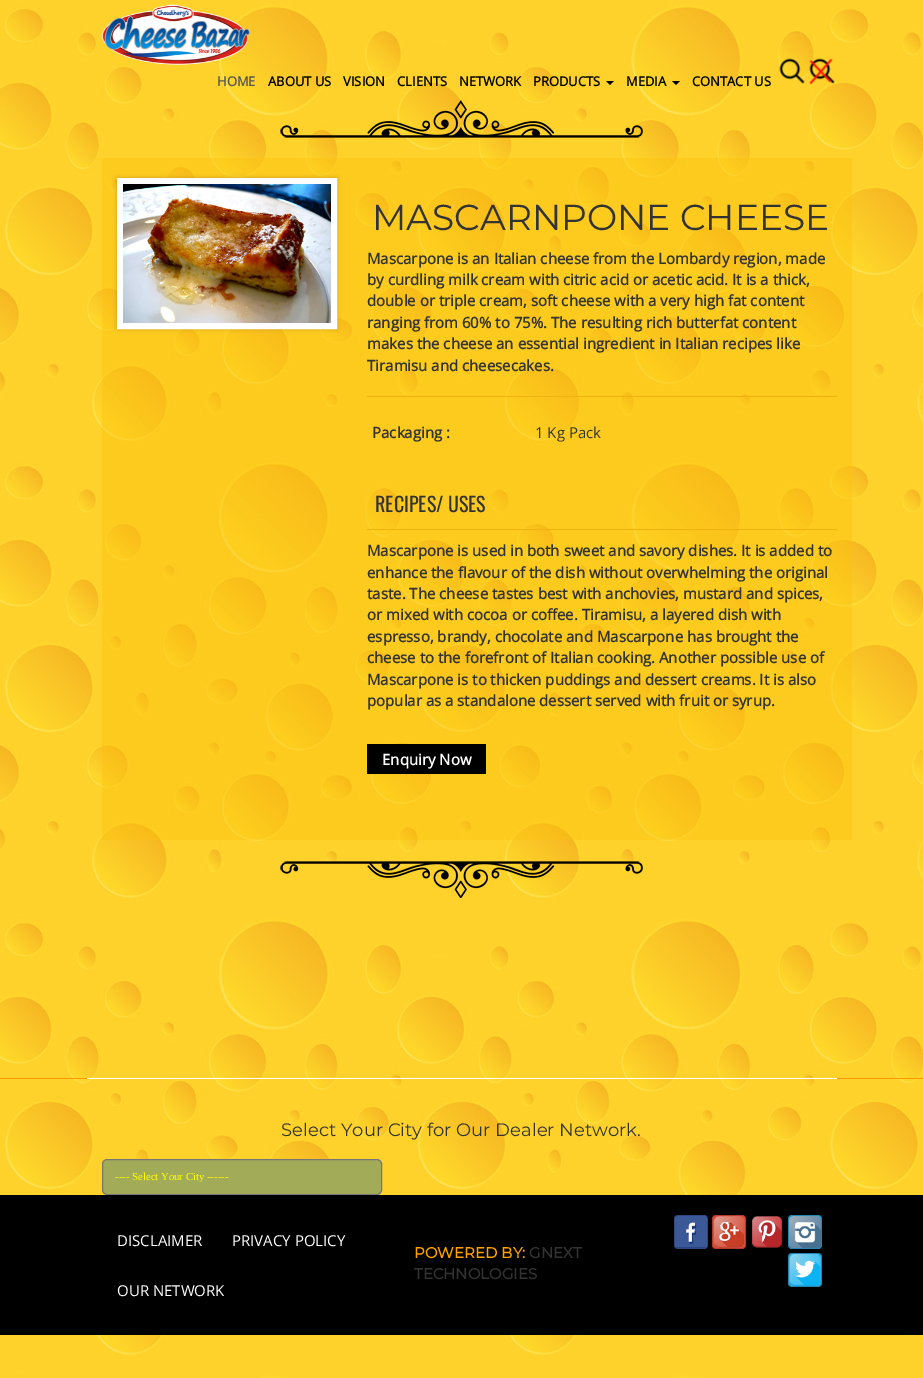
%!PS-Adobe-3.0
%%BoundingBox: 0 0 923 1378
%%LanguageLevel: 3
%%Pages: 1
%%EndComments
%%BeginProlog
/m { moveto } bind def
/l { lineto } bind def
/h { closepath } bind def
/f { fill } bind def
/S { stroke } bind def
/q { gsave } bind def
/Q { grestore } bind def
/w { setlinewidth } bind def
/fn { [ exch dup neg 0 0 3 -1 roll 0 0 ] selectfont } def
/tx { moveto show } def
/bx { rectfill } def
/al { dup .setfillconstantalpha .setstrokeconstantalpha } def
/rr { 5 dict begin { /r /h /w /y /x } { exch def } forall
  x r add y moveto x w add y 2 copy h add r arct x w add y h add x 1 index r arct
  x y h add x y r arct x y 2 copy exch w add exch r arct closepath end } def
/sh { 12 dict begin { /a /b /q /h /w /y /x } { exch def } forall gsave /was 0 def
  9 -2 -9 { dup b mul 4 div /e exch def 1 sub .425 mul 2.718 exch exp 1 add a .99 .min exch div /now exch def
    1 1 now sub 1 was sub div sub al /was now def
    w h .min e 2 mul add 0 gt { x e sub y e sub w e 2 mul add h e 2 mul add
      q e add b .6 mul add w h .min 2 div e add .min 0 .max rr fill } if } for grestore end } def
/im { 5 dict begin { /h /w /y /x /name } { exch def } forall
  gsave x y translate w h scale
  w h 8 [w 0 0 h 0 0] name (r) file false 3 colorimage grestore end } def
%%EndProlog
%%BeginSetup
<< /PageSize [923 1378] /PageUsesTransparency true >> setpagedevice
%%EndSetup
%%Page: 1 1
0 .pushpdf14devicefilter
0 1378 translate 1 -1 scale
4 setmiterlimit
1 setgray
0 0 923 1378 bx
(image0.raw) 0 0 923 1378 im
(image1.raw) 101 4 150 61 im
/OpenSans-Bold 13 fn
0.333 setgray
(HOME) 217 86 tx
0 setgray
(ABOUT US) 268 86 tx
(VISION) 343 86 tx
(CLIENTS) 397 86 tx
(NETWORK) 459 86 tx
(PRODUCTS) 533 86 tx
606 81 m 614 81 l 610 85 l h f
(MEDIA) 626 86 tx
672 81 m 680 81 l 676 85 l h f
(CONTACT US) 692 86 tx
(image2.raw) 779 58 26 26 im
(image3.raw) 809 58 26 27 im
(image4.raw) 280 100 363 38 im
0.4 al
0.988 0.757 0.043 setrgbcolor
102 158 750 682 bx
1 al
0 setgray
117 178 220 151 0 2 0.2 sh
1 setgray
6 w
120 181 214 145 rectstroke
(image5.raw) 123 184 208 139 im
/Montserrat-Thin 36 fn
0.2 setgray
(MASCARNPONE CHEESE) 372 230 tx
/OpenSans-Bold 15 fn
(Mascarpone is an Italian cheese from the Lombardy region, made) 367 264 tx
(by curdling milk cream with citric acid or acetic acid. It is a thick,) 367 285 tx
(double or triple cream, soft cheese with a very high fat content) 367 306 tx
(ranging from 60% to 75%. The resulting rich butterfat content) 367 328 tx
(makes the cheese an essential ingredient in Italian recipes like) 367 349 tx
(Tiramisu and cheesecakes.) 367 371 tx
0.937 0.702 0.067 setrgbcolor
367 396 470 1 bx
0.2 setgray
(Packaging :) 372 438 tx
/OpenSans-Regular 15 fn
(1 Kg Pack) 535 438 tx
0.937 0.702 0.067 setrgbcolor
367 529 470 1 bx
/Oswald-Regular 20 fn
0.2 setgray
(RECIPES/ USES) 375 512 tx
/OpenSans-Bold 15 fn
(Mascarpone is used in both sweet and savory dishes. It is added to) 367 556 tx
(enhance the flavour of the dish without overwhelming the original) 367 578 tx
(taste. The cheese tastes best with anchovies, mustard and spices,) 367 599 tx
(or mixed with cocoa or coffee. Tiramisu, a layered dish with) 367 620 tx
(espresso, brandy, chocolate and Mascarpone has brought the) 367 642 tx
(cheese to the forefront of Italian cooking. Another possible use of) 367 663 tx
(Mascarpone is to thicken puddings and dessert creams. It is also) 367 685 tx
(popular as a standalone dessert served with fruit or syrup.) 367 706 tx
0 setgray
367 744 119 30 bx
1 setgray
(Enquiry Now) 382 765 tx
(image6.raw) 280 861 363 37 im
1 0.6 0 setrgbcolor
0 1078 923 1 bx
1 setgray
87 1078 750 1 bx
/Montserrat-Thin 18 fn
0.2 setgray
(Select Your City for Our Dealer Network.) 281 1136 tx
0.635 0.671 0.345 setrgbcolor
102.5 1159.5 279 35 4.5 rr q f Q
0.463 setgray
1 w
S
q
115 1172 254 10 rectclip
/LiberationSerif-Regular 10.75 fn
1 1 0 setrgbcolor
(---- Select Your City ------) 115 1180 tx
Q
0 setgray
0 1195 923 140 bx
/OpenSans-Regular 15 fn
1 setgray
(DISCLAIMER) 117 1246 tx
(PRIVACY POLICY) 232 1246 tx
(OUR NETWORK) 117 1296 tx
/Montserrat-Bold 15 fn
1 0.635 0 setrgbcolor
(POWERED BY:) 414 1258 tx
0.2 setgray
(GNEXT) 529 1258 tx
(TECHNOLOGIES) 414 1279 tx
0.231 0.349 0.596 setrgbcolor
674 1215 34 34 4 rr f
0.2 al
0 setgray
674.5 1215.5 33 33 3.5 rr S
1 al
(image7.raw) 675 1216 32 32 im
0.867 0.294 0.224 setrgbcolor
712 1215 34 34 4 rr f
0.2 al
0 setgray
712.5 1215.5 33 33 3.5 rr S
1 al
(image8.raw) 713 1216 32 32 im
(image9.raw) 751 1216 32 32 im
0.169 0.663 0.882 setrgbcolor
788 1215 34 34 4 rr f
0.2 al
0 setgray
788.5 1215.5 33 33 3.5 rr S
1 al
(image10.raw) 789 1216 32 32 im
0.169 0.663 0.882 setrgbcolor
788 1253 34 34 4 rr f
0.2 al
0 setgray
788.5 1253.5 33 33 3.5 rr S
1 al
(image11.raw) 789 1254 32 32 im
.poppdf14devicefilter showpage
%%EOF
